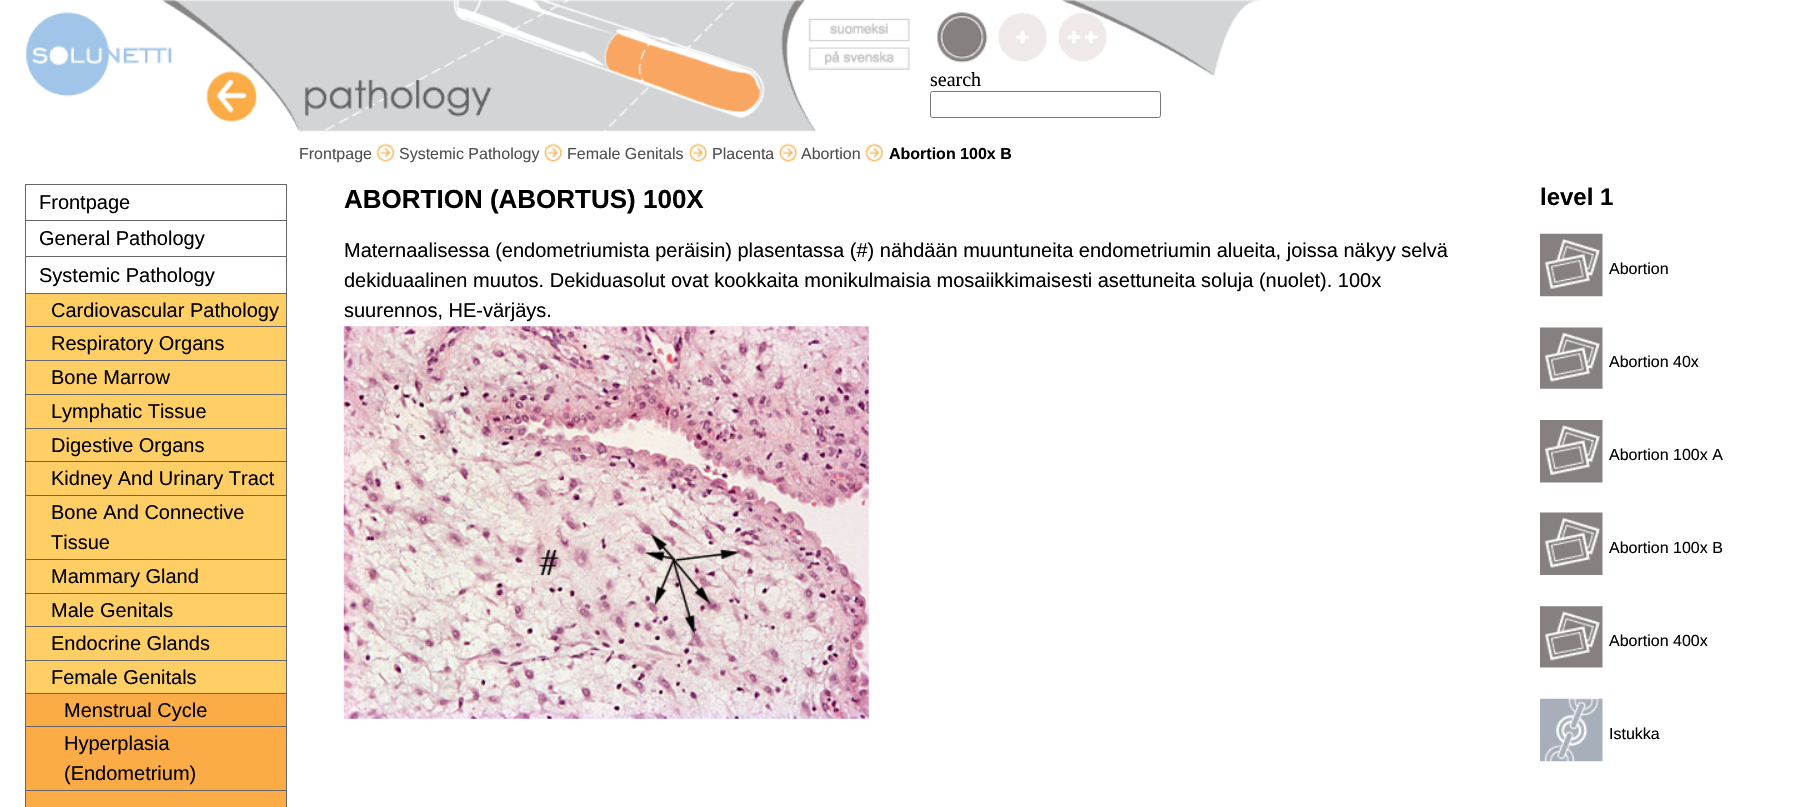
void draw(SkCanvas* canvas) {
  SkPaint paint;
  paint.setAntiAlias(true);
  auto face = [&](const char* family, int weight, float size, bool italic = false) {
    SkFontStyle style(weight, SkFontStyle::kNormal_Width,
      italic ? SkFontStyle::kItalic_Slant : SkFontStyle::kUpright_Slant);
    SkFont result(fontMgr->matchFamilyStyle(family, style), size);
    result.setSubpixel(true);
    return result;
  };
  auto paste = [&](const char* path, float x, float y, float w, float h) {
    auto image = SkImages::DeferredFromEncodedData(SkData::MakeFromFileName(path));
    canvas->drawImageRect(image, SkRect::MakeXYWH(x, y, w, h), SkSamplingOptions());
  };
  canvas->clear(0xffffffff);
  paste("img/1.png", 162, 0, 1098, 132);
  paste("img/2.png", 26, 12, 146, 85);
  paste("img/3.png", 206, 71, 51, 51);
  paste("img/4.png", 808, 18, 102, 24);
  paste("img/5.png", 808, 47, 102, 23);
  paste("img/6.png", 937, 12, 51, 51);
  paste("img/7.png", 998, 12, 49, 50);
  paste("img/8.png", 1058, 12, 49, 50);
  paint.setStroke(true);
  paint.setStrokeWidth(1);
  paint.setColor(0xff767676);
  canvas->drawRoundRect(SkRect::MakeXYWH(930.5f, 91.5f, 230, 26), 2, 2, paint);
  paste("img/9.png", 376, 143, 19, 19);
  paste("img/10.png", 543, 143, 20, 19);
  paste("img/11.png", 688, 143, 20, 19);
  paste("img/11.png", 778, 143, 20, 19);
  paste("img/12.png", 865, 143, 19, 19);
  paint.setStroke(false);
  {
    const struct { float x, y, w, h; SkColor color; } items[] = {
      {286, 184, 1, 623, 0xff696566},
      {25, 184, 1, 623, 0xff696566},
      {26, 184, 260, 1, 0xff696566},
      {26, 220, 260, 1, 0xff696566},
      {26, 256, 260, 1, 0xff696566},
      {26, 294, 260, 399, 0xffffcf65},
      {26, 293, 260, 1, 0xff696566},
      {26, 326, 260, 1, 0xff696566},
      {26, 360, 260, 1, 0xff696566},
      {26, 394, 260, 1, 0xff696566},
      {26, 428, 260, 1, 0xff696566},
      {26, 461, 260, 1, 0xff696566},
      {26, 495, 260, 1, 0xff696566},
      {26, 559, 260, 1, 0xff696566},
      {26, 593, 260, 1, 0xff696566},
      {26, 626, 260, 1, 0xff696566},
      {26, 660, 260, 1, 0xff696566},
      {26, 694, 260, 32, 0xfffbac46},
      {26, 693, 260, 1, 0xff696566},
      {26, 727, 260, 63, 0xfffbac46},
      {26, 726, 260, 1, 0xff696566},
      {26, 791, 260, 16, 0xfffbac46},
      {26, 790, 260, 1, 0xff696566},
    };
    for (auto [x, y, w, h, color] : items) {
      paint.setColor(color);
      canvas->drawRect(SkRect::MakeXYWH(x, y, w, h), paint);
    }
  }
  paste("img/13.png", 343, 326, 526, 393);
  paste("img/14.png", 1540, 233, 63, 64);
  paste("img/15.png", 1540, 327, 63, 62);
  paste("img/16.png", 1540, 420, 63, 63);
  paste("img/17.png", 1540, 512, 63, 63);
  paste("img/18.png", 1540, 606, 63, 62);
  paste("img/19.png", 1540, 698, 63, 64);
  auto f0 = face("Liberation Serif", 400, 20);
  paint.setColor(0xff000000);
  canvas->drawString("search", 930, 86, f0, paint);
  auto f1 = face("Liberation Sans", 400, 16);
  paint.setColor(0xff505050);
  {
    const struct { const char* s; float x, y; } items[] = {
      {"Frontpage", 299, 159},
      {"Systemic Pathology", 399, 159},
      {"Female Genitals", 567, 159},
      {"Placenta", 712, 159},
      {"Abortion", 801, 159},
    };
    for (auto [s, x, y] : items) {
      canvas->drawString(s, x, y, f1, paint);
    }
  }
  auto f2 = face("Liberation Sans", 700, 16);
  paint.setColor(0xff000000);
  canvas->drawString("Abortion 100x B", 889, 159, f2, paint);
  auto f3 = face("Liberation Sans", 400, 20);
  {
    const struct { const char* s; float x, y; } items[] = {
      {"Frontpage", 39, 209},
      {"General Pathology", 39, 245},
      {"Systemic Pathology", 39, 282},
      {"Cardiovascular Pathology", 51, 317},
      {"Respiratory Organs", 51, 350},
      {"Bone Marrow", 51, 384},
      {"Lymphatic Tissue", 51, 418},
      {"Digestive Organs", 51, 452},
      {"Kidney And Urinary Tract", 51, 485},
      {"Bone And Connective", 51, 519},
      {"Tissue", 51, 549},
      {"Mammary Gland", 51, 583},
      {"Male Genitals", 51, 617},
      {"Endocrine Glands", 51, 650},
      {"Female Genitals", 51, 684},
      {"Menstrual Cycle", 64, 717},
      {"Hyperplasia", 64, 750},
      {"(Endometrium)", 64, 780},
    };
    for (auto [s, x, y] : items) {
      canvas->drawString(s, x, y, f3, paint);
    }
  }
  auto f4 = face("Liberation Sans", 700, 26);
  canvas->drawString("ABORTION (ABORTUS) 100X", 344, 208, f4, paint);
  {
    const struct { const char* s; float x, y; } items[] = {
      {"Maternaalisessa (endometriumista peräisin) plasentassa (#) nähdään muuntuneita endometriumin alueita, joissa näkyy selvä", 344, 257},
      {"dekiduaalinen muutos. Dekiduasolut ovat kookkaita monikulmaisia mosaiikkimaisesti asettuneita soluja (nuolet). 100x", 344, 287},
      {"suurennos, HE-värjäys.", 344, 317},
    };
    for (auto [s, x, y] : items) {
      canvas->drawString(s, x, y, f3, paint);
    }
  }
  auto f5 = face("Liberation Sans", 700, 24);
  canvas->drawString("level 1", 1540, 205, f5, paint);
  {
    const struct { const char* s; float x, y; } items[] = {
      {"Abortion", 1609, 274},
      {"Abortion 40x", 1609, 367},
      {"Abortion 100x A", 1609, 460},
      {"Abortion 100x B", 1609, 553},
      {"Abortion 400x", 1609, 646},
      {"Istukka", 1609, 739},
    };
    for (auto [s, x, y] : items) {
      canvas->drawString(s, x, y, f1, paint);
    }
  }
}
